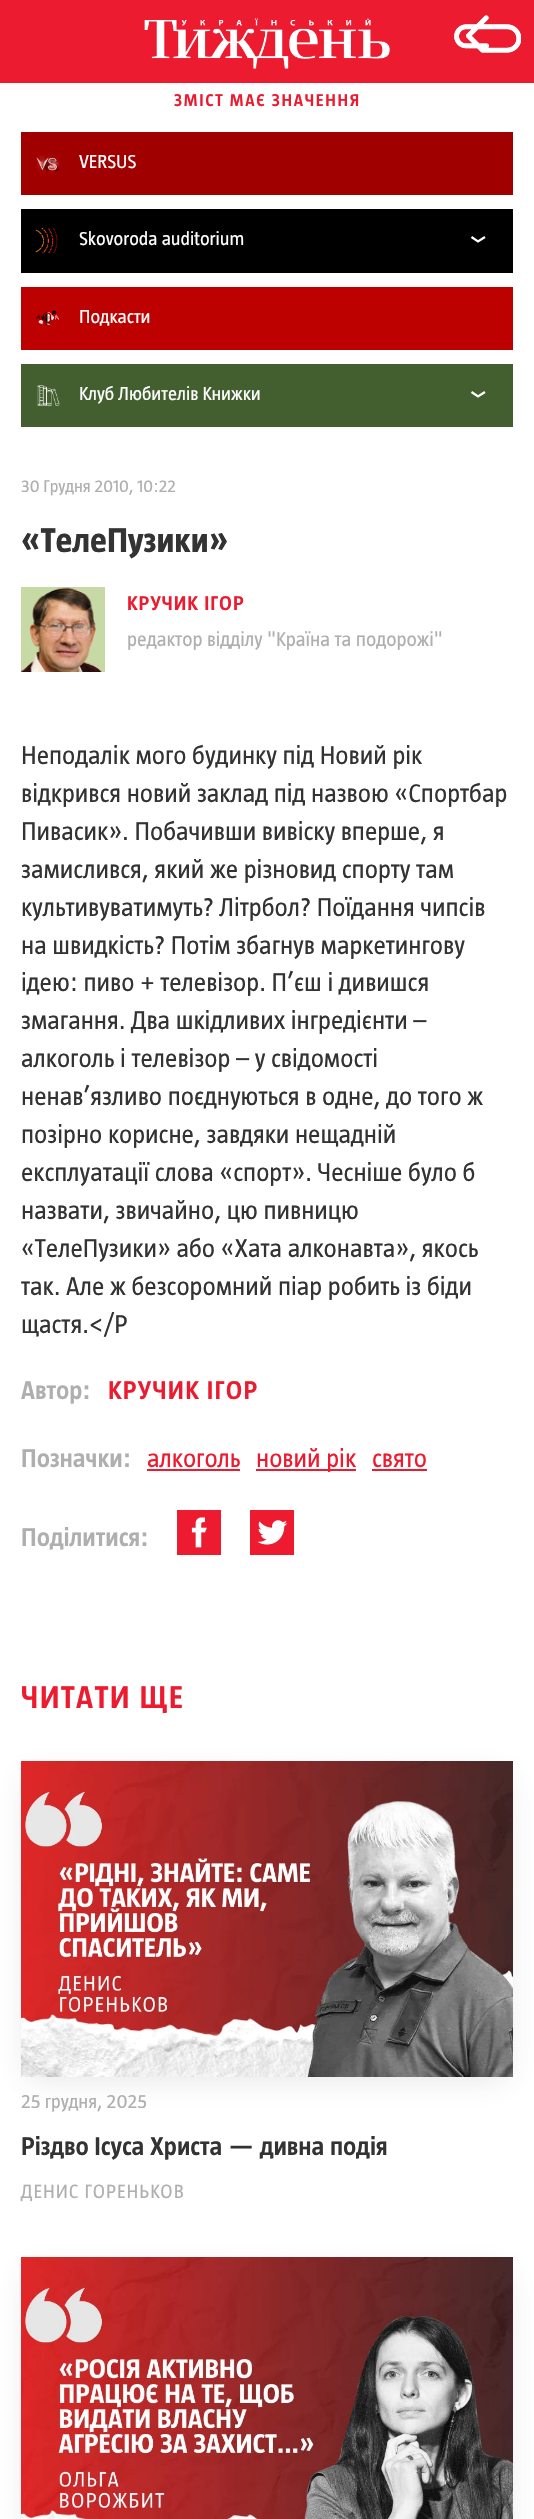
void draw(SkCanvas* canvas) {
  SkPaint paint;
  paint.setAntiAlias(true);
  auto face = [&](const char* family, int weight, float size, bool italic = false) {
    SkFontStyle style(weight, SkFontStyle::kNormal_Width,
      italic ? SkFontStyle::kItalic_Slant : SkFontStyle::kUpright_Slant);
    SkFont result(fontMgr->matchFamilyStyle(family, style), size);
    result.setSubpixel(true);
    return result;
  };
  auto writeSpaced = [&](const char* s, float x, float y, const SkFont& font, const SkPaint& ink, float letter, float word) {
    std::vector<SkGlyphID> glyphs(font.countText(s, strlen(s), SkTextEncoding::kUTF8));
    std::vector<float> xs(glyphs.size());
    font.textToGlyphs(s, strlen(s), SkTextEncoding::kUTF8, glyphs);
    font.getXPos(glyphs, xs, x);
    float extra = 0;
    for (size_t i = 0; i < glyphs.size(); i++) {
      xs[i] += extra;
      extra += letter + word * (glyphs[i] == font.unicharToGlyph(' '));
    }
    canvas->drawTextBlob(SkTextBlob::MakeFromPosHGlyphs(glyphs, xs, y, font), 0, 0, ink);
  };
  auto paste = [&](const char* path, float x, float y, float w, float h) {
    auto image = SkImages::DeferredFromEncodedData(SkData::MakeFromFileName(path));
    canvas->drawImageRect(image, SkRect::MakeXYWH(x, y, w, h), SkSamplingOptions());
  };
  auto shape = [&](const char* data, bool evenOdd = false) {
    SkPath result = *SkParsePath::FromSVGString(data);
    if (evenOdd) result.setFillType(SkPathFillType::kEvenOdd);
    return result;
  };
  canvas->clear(0xffffffff);
  paint.setColor(0xffed1b2f);
  canvas->drawRect(SkRect::MakeXYWH(0, 0, 534, 83), paint);
  paste("img/1.png", 454, 15, 67, 38);
  paste("img/2.png", 144, 18, 246, 51);
  paint.setColor(0xffa10000);
  canvas->drawRect(SkRect::MakeXYWH(21, 132, 492, 63), paint);
  paste("img/3.png", 36, 155, 24, 19);
  paint.setColor(0xff000000);
  canvas->drawRect(SkRect::MakeXYWH(21, 209, 492, 64), paint);
  paste("img/4.png", 35, 228, 23, 25);
  paint.setStroke(true);
  paint.setStrokeWidth(2.2f);
  paint.setColor(0xffffffff);
  canvas->drawPath(shape("M471.5 237L478 241.5L485 237"), paint);
  paint.setStroke(false);
  paint.setColor(0xffbd0000);
  canvas->drawRect(SkRect::MakeXYWH(21, 287, 492, 63), paint);
  paste("img/5.png", 36, 310, 23, 15);
  paint.setColor(0xff435f2f);
  canvas->drawRect(SkRect::MakeXYWH(21, 364, 492, 63), paint);
  paste("img/6.png", 37, 385, 23, 22);
  paint.setStroke(true);
  paint.setColor(0xffffffff);
  canvas->drawPath(shape("M471.5 392L478 396.5L485 392"), paint);
  paste("img/7.png", 21, 587, 84, 85);
  paint.setStroke(false);
  {
    const struct { float x, y, w, h; SkColor color; } items[] = {
      {147, 1469, 93, 2, 0xffed1b2f},
      {256, 1469, 100, 2, 0xffed1b2f},
      {372, 1469, 55, 2, 0xffed1b2f},
    };
    for (auto [x, y, w, h, color] : items) {
      paint.setColor(color);
      canvas->drawRect(SkRect::MakeXYWH(x, y, w, h), paint);
    }
  }
  paste("img/8.png", 177, 1510, 44, 45);
  paste("img/9.png", 250, 1510, 44, 45);
  paint.setColor(0x263c3d4a);
  paint.setMaskFilter(SkMaskFilter::MakeBlur(kNormal_SkBlurStyle, 15));
  canvas->drawRect(SkRect::MakeXYWH(29, 1777, 476, 300), paint);
  paint.setMaskFilter(nullptr);
  paste("img/10.png", 21, 1761, 492, 316);
  paint.setMaskFilter(SkMaskFilter::MakeBlur(kNormal_SkBlurStyle, 15));
  canvas->drawRect(SkRect::MakeXYWH(29, 2273, 476, 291), paint);
  paint.setMaskFilter(nullptr);
  paste("img/11.png", 21, 2257, 492, 262);
  auto f0 = face("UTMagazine", 600, 16.9f);
  paint.setColor(0xffed1b2f);
  writeSpaced("ЗМІСТ МАЄ ЗНАЧЕННЯ", 174, 106, f0, paint, 1.7f, 0);
  auto f1 = face("UTMagazine", 400, 18.5f);
  paint.setColor(0xffffffff);
  {
    const struct { const char* s; float x, y; } items[] = {
      {"VERSUS", 79, 168},
      {"Skovoroda auditorium", 79, 245},
      {"Подкасти", 79, 323},
      {"Клуб Любителів Книжки", 79, 400},
    };
    for (auto [s, x, y] : items) {
      canvas->drawString(s, x, y, f1, paint);
    }
  }
  auto f2 = face("UTMagazine", 400, 16.9f);
  paint.setColor(0xffafafaf);
  canvas->drawString("30 Грудня 2010, 10:22", 21, 492, f2, paint);
  auto f3 = face("UTMagazine", 700, 33.75f);
  paint.setColor(0xff333333);
  canvas->drawString("«ТелеПузики»", 21, 552, f3, paint);
  auto f4 = face("UTMagazine", 600, 19.7f);
  paint.setColor(0xffed1b2f);
  writeSpaced("КРУЧИК ІГОР", 127, 610, f4, paint, 1, 0);
  auto f5 = face("UTMagazine", 400, 19.7f);
  paint.setColor(0xffafafaf);
  canvas->drawString("редактор відділу \"Країна та подорожі\"", 127, 646, f5, paint);
  auto f6 = face("UTMagazine", 400, 25.25f);
  paint.setColor(0xff333333);
  {
    const struct { const char* s; float x, y; } items[] = {
      {"Неподалік мого будинку під Новий рік", 21, 764},
      {"відкрився новий заклад під назвою «Спортбар", 21, 802},
      {"Пивасик». Побачивши вивіску вперше, я", 21, 840},
      {"замислився, який же різновид спорту там", 21, 878},
      {"культивуватимуть? Літрбол? Поїдання чипсів", 21, 916},
      {"на швидкість? Потім збагнув маркетингову", 21, 954},
      {"ідею: пиво + телевізор. П’єш і дивишся", 21, 991},
      {"змагання. Два шкідливих інгредієнти –", 21, 1029},
      {"алкоголь і телевізор – у свідомості", 21, 1067},
      {"ненав’язливо поєднуються в одне, до того ж", 21, 1105},
      {"позірно корисне, завдяки нещадній", 21, 1143},
      {"експлуатації слова «спорт». Чесніше було б", 21, 1181},
      {"назвати, звичайно, цю пивницю", 21, 1219},
      {"«ТелеПузики» або «Хата алконавта», якось", 21, 1257},
      {"так. Але ж безсоромний піар робить із біди", 21, 1295},
      {"щастя.</P", 21, 1333},
    };
    for (auto [s, x, y] : items) {
      canvas->drawString(s, x, y, f6, paint);
    }
  }
  auto f7 = face("UTMagazine", 600, 25.25f);
  paint.setColor(0xffafafaf);
  canvas->drawString("Автор:", 21, 1399, f7, paint);
  paint.setColor(0xffed1b2f);
  writeSpaced("КРУЧИК ІГОР", 108, 1399, f7, paint, 1.25f, 0);
  paint.setColor(0xffafafaf);
  canvas->drawString("Позначки:", 21, 1467, f7, paint);
  paint.setColor(0xffed1b2f);
  {
    const struct { const char* s; float x, y; } items[] = {
      {"алкоголь", 147, 1467},
      {"новий рік", 256, 1467},
      {"свято", 372, 1467},
    };
    for (auto [s, x, y] : items) {
      canvas->drawString(s, x, y, f6, paint);
    }
  }
  paint.setColor(0xffafafaf);
  canvas->drawString("Поділитися:", 21, 1546, f7, paint);
  auto f8 = face("UTMagazine", 600, 31);
  paint.setColor(0xffed1b2f);
  writeSpaced("ЧИТАТИ ЩЕ", 21, 1708, f8, paint, 1.5f, 0);
  auto f9 = face("UTMagazine", 400, 19);
  paint.setColor(0xffafafaf);
  canvas->drawString("25 грудня, 2025", 21, 2108, f9, paint);
  paint.setColor(0xff333333);
  canvas->drawString("Різдво Ісуса Христа — дивна подія", 21, 2155, f7, paint);
  paint.setColor(0xffafafaf);
  writeSpaced("ДЕНИС ГОРЕНЬКОВ", 21, 2198, f9, paint, 1, 0);
}
